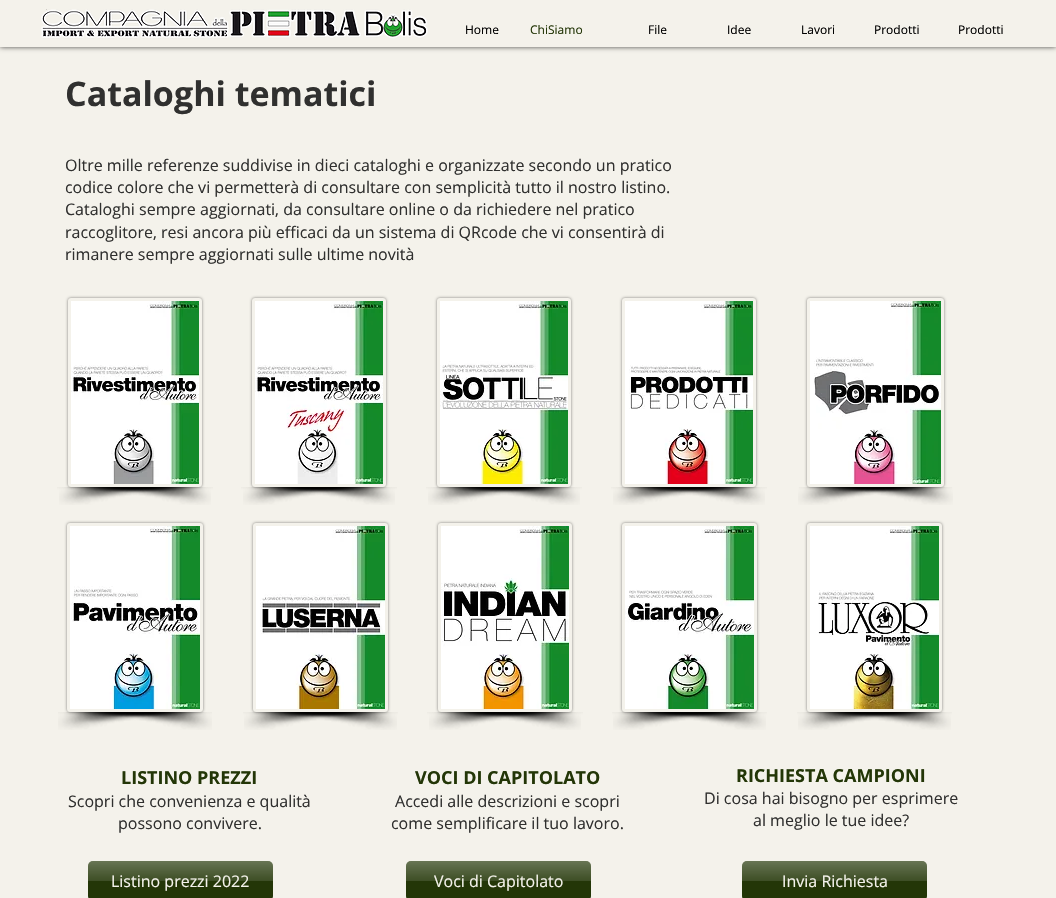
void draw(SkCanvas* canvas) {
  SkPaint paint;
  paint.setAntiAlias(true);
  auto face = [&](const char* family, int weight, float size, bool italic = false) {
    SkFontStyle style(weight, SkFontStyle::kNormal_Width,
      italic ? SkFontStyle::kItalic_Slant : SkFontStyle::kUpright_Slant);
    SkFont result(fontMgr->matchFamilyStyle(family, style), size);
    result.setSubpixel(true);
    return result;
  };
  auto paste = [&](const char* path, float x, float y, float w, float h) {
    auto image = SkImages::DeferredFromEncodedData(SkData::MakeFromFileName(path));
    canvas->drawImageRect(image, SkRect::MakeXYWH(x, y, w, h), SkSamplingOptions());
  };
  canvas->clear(0xfff4f2eb);
  paint.setColor(0xb3000000);
  paint.setMaskFilter(SkMaskFilter::MakeBlur(kNormal_SkBlurStyle, 2.5f));
  canvas->drawRect(SkRect::MakeXYWH(0, 0, 1056, 47), paint);
  paint.setMaskFilter(nullptr);
  paint.setColor(0xfff4f2eb);
  canvas->drawRect(SkRect::MakeXYWH(0, 0, 1056, 47), paint);
  paste("img/1.png", 41, 9, 387, 30);
  paint.setColor(0xffd0ccc7);
  canvas->drawRect(SkRect::MakeXYWH(46, 9, 1, 1), paint);
  paint.setColor(0x80000000);
  paint.setMaskFilter(SkMaskFilter::MakeBlur(kNormal_SkBlurStyle, 1.5f));
  canvas->drawRoundRect(SkRect::MakeXYWH(68, 298, 134, 189), 3, 3, paint);
  paint.setMaskFilter(nullptr);
  paint.setStroke(true);
  paint.setStrokeWidth(3);
  paint.setColor(0xfff4f2eb);
  canvas->drawRoundRect(SkRect::MakeXYWH(69.5f, 299.5f, 131, 186), 1.5f, 1.5f, paint);
  paste("img/2.png", 71, 301, 128, 183);
  paste("img/4.png", 59, 487, 154, 18);
  paste("img/3.png", 57, 487, 154, 18);
  paint.setStroke(false);
  paint.setColor(0x80000000);
  paint.setMaskFilter(SkMaskFilter::MakeBlur(kNormal_SkBlurStyle, 1.5f));
  canvas->drawRoundRect(SkRect::MakeXYWH(252, 298, 134, 189), 3, 3, paint);
  paint.setMaskFilter(nullptr);
  paint.setStroke(true);
  paint.setColor(0xfff4f2eb);
  canvas->drawRoundRect(SkRect::MakeXYWH(253.5f, 299.5f, 131, 186), 1.5f, 1.5f, paint);
  paste("img/5.png", 255, 301, 128, 183);
  paste("img/4.png", 243, 487, 154, 18);
  paste("img/3.png", 241, 487, 154, 18);
  paint.setStroke(false);
  paint.setColor(0x80000000);
  paint.setMaskFilter(SkMaskFilter::MakeBlur(kNormal_SkBlurStyle, 1.5f));
  canvas->drawRoundRect(SkRect::MakeXYWH(437, 298, 134, 189), 3, 3, paint);
  paint.setMaskFilter(nullptr);
  paint.setStroke(true);
  paint.setColor(0xfff4f2eb);
  canvas->drawRoundRect(SkRect::MakeXYWH(438.5f, 299.5f, 131, 186), 1.5f, 1.5f, paint);
  paste("img/6.png", 440, 301, 128, 183);
  paste("img/4.png", 428, 487, 154, 18);
  paste("img/3.png", 426, 487, 154, 18);
  paint.setStroke(false);
  paint.setColor(0x80000000);
  paint.setMaskFilter(SkMaskFilter::MakeBlur(kNormal_SkBlurStyle, 1.5f));
  canvas->drawRoundRect(SkRect::MakeXYWH(622, 298, 134, 189), 3, 3, paint);
  paint.setMaskFilter(nullptr);
  paint.setStroke(true);
  paint.setColor(0xfff4f2eb);
  canvas->drawRoundRect(SkRect::MakeXYWH(623.5f, 299.5f, 131, 186), 1.5f, 1.5f, paint);
  paste("img/7.png", 625, 301, 128, 183);
  paste("img/4.png", 613, 487, 154, 18);
  paste("img/3.png", 611, 487, 154, 18);
  paint.setStroke(false);
  paint.setColor(0x80000000);
  paint.setMaskFilter(SkMaskFilter::MakeBlur(kNormal_SkBlurStyle, 1.5f));
  canvas->drawRoundRect(SkRect::MakeXYWH(807, 298, 137, 189), 3, 3, paint);
  paint.setMaskFilter(nullptr);
  paint.setStroke(true);
  paint.setColor(0xfff4f2eb);
  canvas->drawRoundRect(SkRect::MakeXYWH(808.5f, 299.5f, 134, 186), 1.5f, 1.5f, paint);
  paste("img/8.png", 810, 301, 131, 183);
  paste("img/9.png", 798, 487, 154, 18);
  paste("img/10.png", 799, 487, 154, 18);
  paint.setStroke(false);
  paint.setColor(0x80000000);
  paint.setMaskFilter(SkMaskFilter::MakeBlur(kNormal_SkBlurStyle, 1.5f));
  canvas->drawRoundRect(SkRect::MakeXYWH(67, 523, 136, 189), 3, 3, paint);
  paint.setMaskFilter(nullptr);
  paint.setStroke(true);
  paint.setColor(0xfff4f2eb);
  canvas->drawRoundRect(SkRect::MakeXYWH(68.5f, 524.5f, 133, 186), 1.5f, 1.5f, paint);
  paste("img/11.png", 70, 526, 130, 183);
  paste("img/12.png", 58, 712, 154, 18);
  paste("img/13.png", 58, 712, 154, 18);
  paint.setStroke(false);
  paint.setColor(0x80000000);
  paint.setMaskFilter(SkMaskFilter::MakeBlur(kNormal_SkBlurStyle, 1.5f));
  canvas->drawRoundRect(SkRect::MakeXYWH(253, 523, 135, 189), 3, 3, paint);
  paint.setMaskFilter(nullptr);
  paint.setStroke(true);
  paint.setColor(0xfff4f2eb);
  canvas->drawRoundRect(SkRect::MakeXYWH(254.5f, 524.5f, 132, 186), 1.5f, 1.5f, paint);
  paste("img/14.png", 256, 526, 129, 183);
  paste("img/16.png", 244, 712, 154, 18);
  paste("img/15.png", 243, 712, 154, 18);
  paint.setStroke(false);
  paint.setColor(0x80000000);
  paint.setMaskFilter(SkMaskFilter::MakeBlur(kNormal_SkBlurStyle, 1.5f));
  canvas->drawRoundRect(SkRect::MakeXYWH(438, 523, 134, 189), 3, 3, paint);
  paint.setMaskFilter(nullptr);
  paint.setStroke(true);
  paint.setColor(0xfff4f2eb);
  canvas->drawRoundRect(SkRect::MakeXYWH(439.5f, 524.5f, 131, 186), 1.5f, 1.5f, paint);
  paste("img/17.png", 441, 526, 128, 183);
  paste("img/4.png", 429, 712, 154, 18);
  paste("img/3.png", 427, 712, 154, 18);
  paint.setStroke(false);
  paint.setColor(0x80000000);
  paint.setMaskFilter(SkMaskFilter::MakeBlur(kNormal_SkBlurStyle, 1.5f));
  canvas->drawRoundRect(SkRect::MakeXYWH(622, 523, 135, 189), 3, 3, paint);
  paint.setMaskFilter(nullptr);
  paint.setStroke(true);
  paint.setColor(0xfff4f2eb);
  canvas->drawRoundRect(SkRect::MakeXYWH(623.5f, 524.5f, 132, 186), 1.5f, 1.5f, paint);
  paste("img/18.png", 625, 526, 129, 183);
  paste("img/16.png", 613, 712, 154, 18);
  paste("img/15.png", 612, 712, 154, 18);
  paint.setStroke(false);
  paint.setColor(0x80000000);
  paint.setMaskFilter(SkMaskFilter::MakeBlur(kNormal_SkBlurStyle, 1.5f));
  canvas->drawRoundRect(SkRect::MakeXYWH(807, 523, 135, 189), 3, 3, paint);
  paint.setMaskFilter(nullptr);
  paint.setStroke(true);
  paint.setColor(0xfff4f2eb);
  canvas->drawRoundRect(SkRect::MakeXYWH(808.5f, 524.5f, 132, 186), 1.5f, 1.5f, paint);
  paste("img/19.png", 810, 526, 129, 183);
  paste("img/16.png", 798, 712, 154, 18);
  paste("img/15.png", 797, 712, 154, 18);
  paint.setStroke(false);
  paint.setColor(0xff233607);
  canvas->drawRoundRect(SkRect::MakeXYWH(88, 861, 185, 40), 5, 5, paint);
  paste("img/20.png", 88, 861, 185, 20);
  canvas->drawRoundRect(SkRect::MakeXYWH(406, 861, 185, 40), 5, 5, paint);
  paste("img/20.png", 406, 861, 185, 20);
  canvas->drawRoundRect(SkRect::MakeXYWH(742, 861, 185, 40), 5, 5, paint);
  paste("img/20.png", 742, 861, 185, 20);
  auto f0 = face("Open Sans", 400, 12);
  paint.setColor(0xff000000);
  canvas->drawString("Home", 465, 34, f0, paint);
  paint.setColor(0xff233607);
  canvas->drawString("ChiSiamo", 530, 34, f0, paint);
  paint.setColor(0xff000000);
  {
    const struct { const char* s; float x, y; } items[] = {
      {"File", 648, 34},
      {"Idee", 727, 34},
      {"Lavori", 801, 34},
      {"Prodotti", 874, 34},
      {"Prodotti", 958, 34},
    };
    for (auto [s, x, y] : items) {
      canvas->drawString(s, x, y, f0, paint);
    }
  }
  auto f1 = face("Open Sans", 700, 34);
  paint.setColor(0xff30302f);
  canvas->drawString("Cataloghi tematici", 65, 106, f1, paint);
  auto f2 = face("Open Sans", 400, 16);
  {
    const struct { const char* s; float x, y; } items[] = {
      {"Oltre mille referenze suddivise in dieci cataloghi e organizzate secondo un pratico", 65, 171},
      {"codice colore che vi permetterà di consultare con semplicità tutto il nostro listino.", 65, 193},
      {"Cataloghi sempre aggiornati, da consultare online o da richiedere nel pratico", 65, 215},
      {"raccoglitore, resi ancora più efficaci da un sistema di QRcode che vi consentirà di", 65, 238},
      {"rimanere sempre aggiornati sulle ultime novità", 65, 260},
    };
    for (auto [s, x, y] : items) {
      canvas->drawString(s, x, y, f2, paint);
    }
  }
  auto f3 = face("Open Sans", 700, 18);
  paint.setColor(0xff233607);
  canvas->drawString("LISTINO PREZZI", 121, 784, f3, paint);
  paint.setColor(0xff30302f);
  canvas->drawString("Scopri che convenienza e qualità", 68, 807, f2, paint);
  canvas->drawString("possono convivere.", 118, 829, f2, paint);
  paint.setColor(0xff233607);
  canvas->drawString("VOCI DI CAPITOLATO", 415, 784, f3, paint);
  paint.setColor(0xff30302f);
  canvas->drawString("Accedi alle descrizioni e scopri", 395, 807, f2, paint);
  canvas->drawString("come semplificare il tuo lavoro.", 391, 829, f2, paint);
  paint.setColor(0xff233607);
  canvas->drawString("RICHIESTA CAMPIONI", 736, 782, f3, paint);
  paint.setColor(0xff30302f);
  canvas->drawString("Di cosa hai bisogno per esprimere", 704, 804, f2, paint);
  canvas->drawString("al meglio le tue idee?", 753, 826, f2, paint);
  paint.setColor(0xfff4f2eb);
  {
    const struct { const char* s; float x, y; } items[] = {
      {"Listino prezzi 2022", 111, 887},
      {"Voci di Capitolato", 434, 887},
      {"Invia Richiesta", 782, 887},
    };
    for (auto [s, x, y] : items) {
      canvas->drawString(s, x, y, f2, paint);
    }
  }
}
